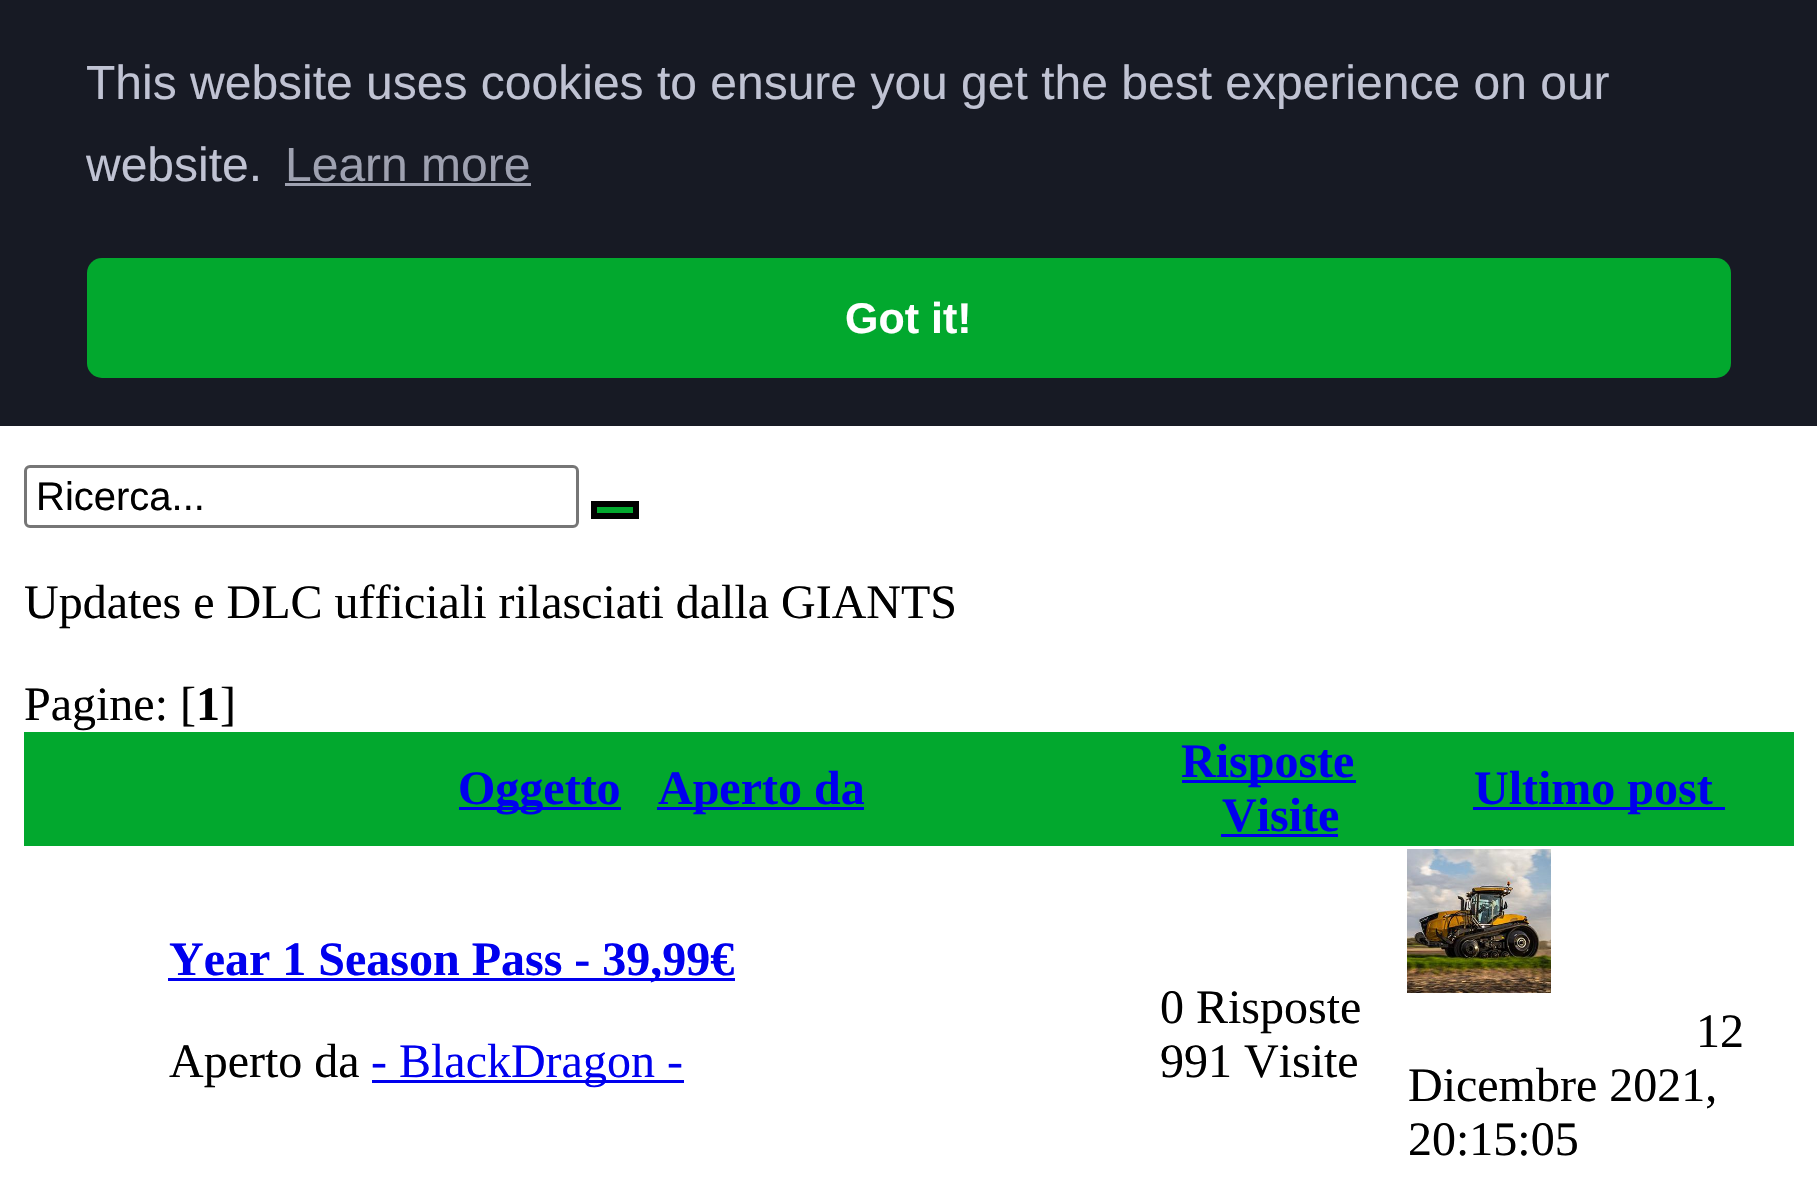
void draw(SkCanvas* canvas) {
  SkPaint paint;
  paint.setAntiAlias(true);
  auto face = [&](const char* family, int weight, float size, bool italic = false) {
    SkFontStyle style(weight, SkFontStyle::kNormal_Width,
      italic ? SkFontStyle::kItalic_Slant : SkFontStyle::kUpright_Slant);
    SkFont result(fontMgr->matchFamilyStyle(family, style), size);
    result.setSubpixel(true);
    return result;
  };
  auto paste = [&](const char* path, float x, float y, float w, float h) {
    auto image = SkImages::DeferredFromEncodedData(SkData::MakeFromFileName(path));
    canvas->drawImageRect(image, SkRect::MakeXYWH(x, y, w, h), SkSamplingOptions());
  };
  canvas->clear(0xffffffff);
  paint.setColor(0xff171a24);
  canvas->drawRect(SkRect::MakeXYWH(0, 0, 1817, 426), paint);
  paint.setColor(0xff9ea1b0);
  canvas->drawRect(SkRect::MakeXYWH(285, 183, 246, 3), paint);
  paint.setColor(0xff02a82e);
  canvas->drawRoundRect(SkRect::MakeXYWH(87, 258, 1644, 120), 15, 15, paint);
  paint.setStroke(true);
  paint.setStrokeWidth(3);
  paint.setColor(0xff767676);
  canvas->drawRoundRect(SkRect::MakeXYWH(25.5f, 466.5f, 552, 60), 4.5f, 4.5f, paint);
  paint.setStroke(false);
  paint.setColor(0xff02a82e);
  canvas->drawRect(SkRect::MakeXYWH(594, 504, 42, 12), paint);
  paint.setStroke(true);
  paint.setStrokeWidth(6);
  paint.setColor(0xff000000);
  canvas->drawRect(SkRect::MakeXYWH(594, 504, 42, 12), paint);
  paint.setStroke(false);
  {
    const struct { float x, y, w, h; SkColor color; } items[] = {
      {24, 732, 1770, 114, 0xff02a82e},
      {459, 807, 162, 3, 0xff0000ee},
      {657, 807, 207, 3, 0xff0000ee},
      {1182, 780, 174, 3, 0xff0000ee},
      {1221, 834, 117, 3, 0xff0000ee},
      {1473, 807, 252, 3, 0xff0000ee},
      {168, 978, 567, 3, 0xff0000ee},
      {372, 1080, 312, 3, 0xff0000ee},
    };
    for (auto [x, y, w, h, color] : items) {
      paint.setColor(color);
      canvas->drawRect(SkRect::MakeXYWH(x, y, w, h), paint);
    }
  }
  paste("img/1.png", 1407, 849, 144, 144);
  auto f0 = face("Liberation Sans", 400, 48);
  paint.setColor(0xffc0c3d3);
  canvas->drawString("This website uses cookies to ensure you get the best experience on our", 86, 99, f0, paint);
  canvas->drawString("website.", 86, 181, f0, paint);
  paint.setColor(0xff9ea1b0);
  canvas->drawString("Learn more", 285, 181, f0, paint);
  auto f1 = face("Liberation Sans", 700, 43);
  paint.setColor(0xffffffff);
  canvas->drawString("Got it!", 845, 333, f1, paint);
  auto f2 = face("Liberation Sans", 400, 40);
  paint.setColor(0xff000000);
  canvas->drawString("Ricerca...", 36, 510, f2, paint);
  auto f3 = face("Liberation Serif", 400, 48);
  canvas->drawString("Updates e DLC ufficiali rilasciati dalla GIANTS", 24, 618, f3, paint);
  canvas->drawString("Pagine: [", 24, 720, f3, paint);
  auto f4 = face("Liberation Serif", 700, 48);
  canvas->drawString("1", 196, 720, f4, paint);
  canvas->drawString("]", 220, 720, f3, paint);
  paint.setColor(0xff0000ee);
  {
    const struct { const char* s; float x, y; } items[] = {
      {"Oggetto", 458, 804},
      {"Aperto da", 658, 804},
      {"Risposte", 1181, 777},
      {"Visite", 1222, 831},
      {"Ultimo post", 1474, 804},
      {"Year 1 Season Pass - 39,99€", 169, 975},
    };
    for (auto [s, x, y] : items) {
      canvas->drawString(s, x, y, f4, paint);
    }
  }
  paint.setColor(0xff000000);
  canvas->drawString("Aperto da", 169, 1077, f3, paint);
  paint.setColor(0xff0000ee);
  canvas->drawString("- BlackDragon -", 371, 1077, f3, paint);
  paint.setColor(0xff000000);
  {
    const struct { const char* s; float x, y; } items[] = {
      {"0 Risposte", 1160, 1023},
      {"991 Visite", 1160, 1077},
      {"12", 1696, 1047},
      {"Dicembre 2021,", 1408, 1101},
      {"20:15:05", 1408, 1155},
    };
    for (auto [s, x, y] : items) {
      canvas->drawString(s, x, y, f3, paint);
    }
  }
}
